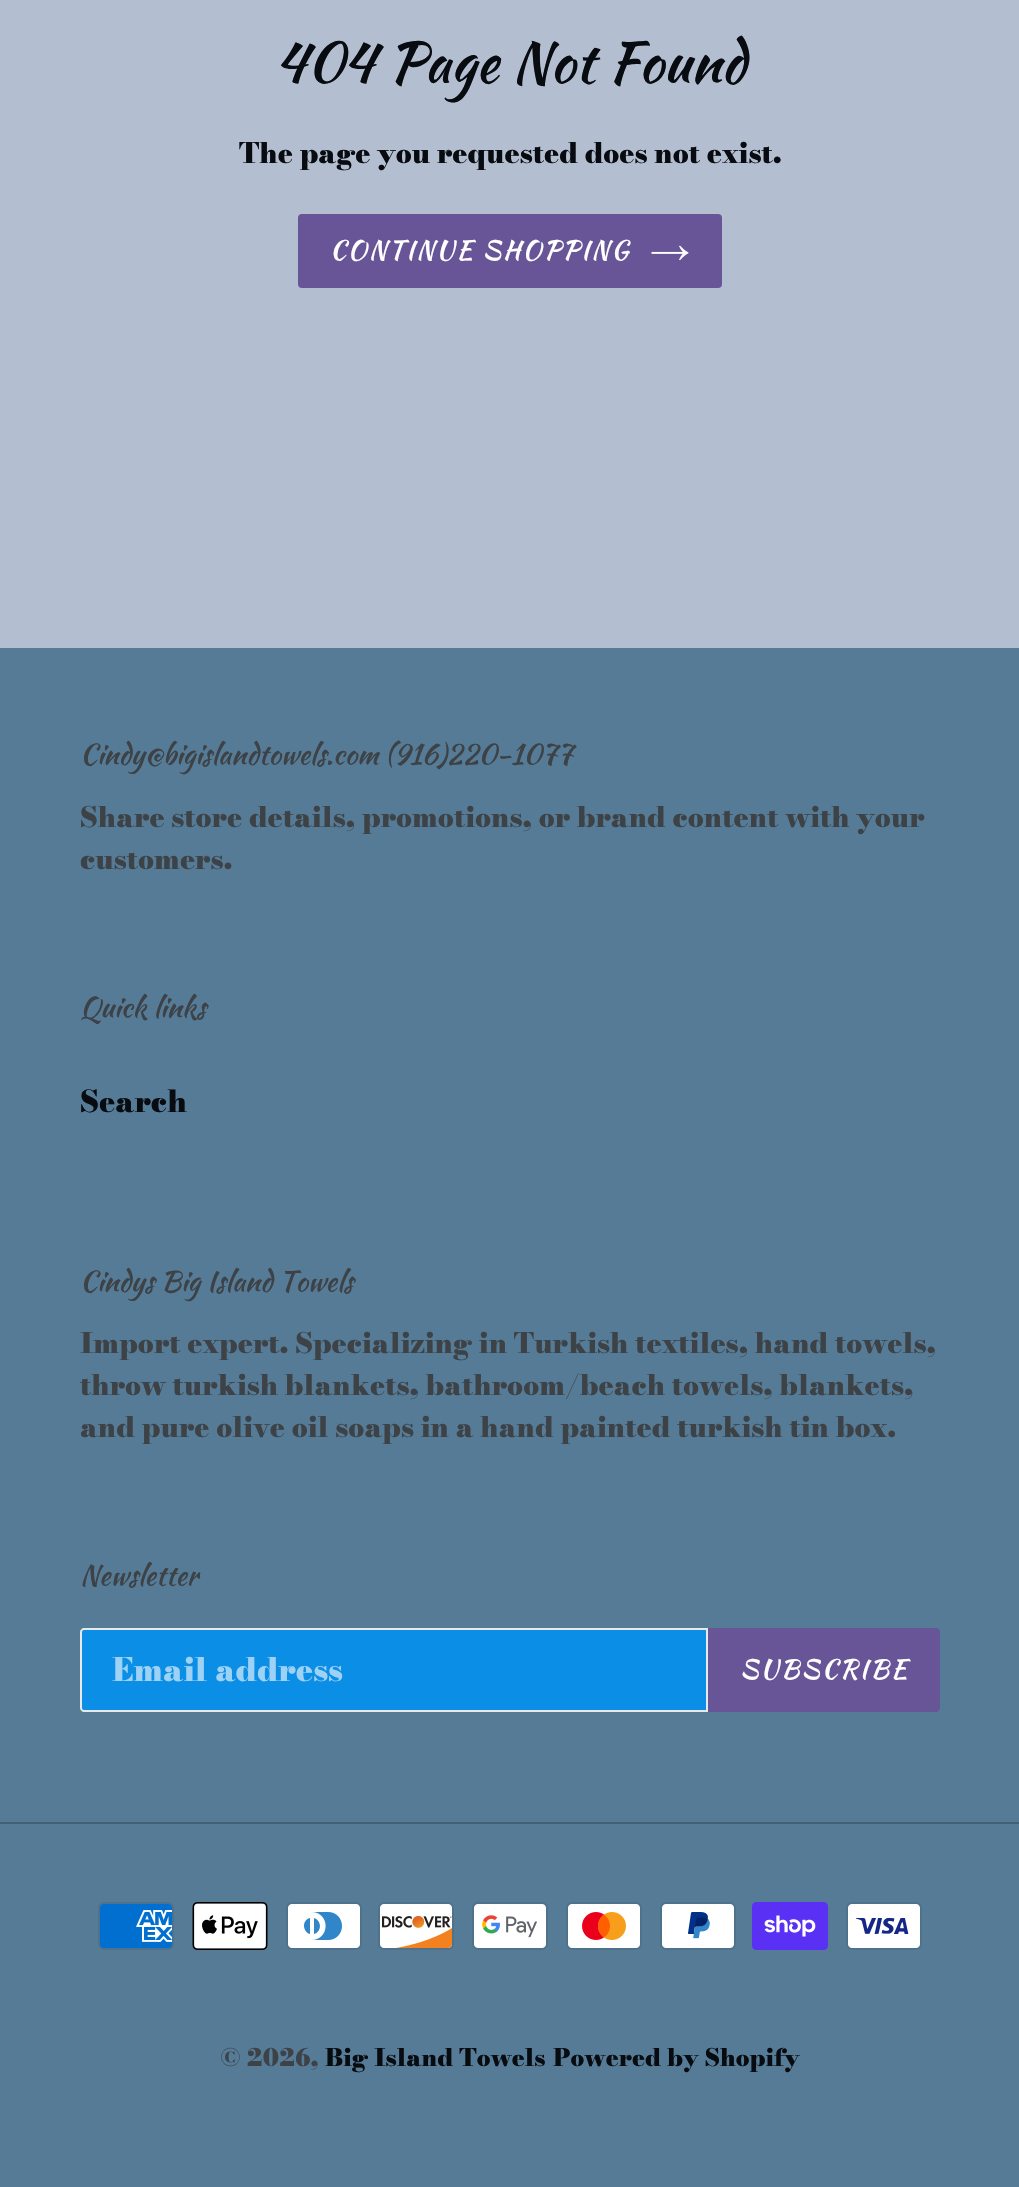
void draw(SkCanvas* canvas) {
  SkPaint paint;
  paint.setAntiAlias(true);
  auto face = [&](const char* family, int weight, float size, bool italic = false) {
    SkFontStyle style(weight, SkFontStyle::kNormal_Width,
      italic ? SkFontStyle::kItalic_Slant : SkFontStyle::kUpright_Slant);
    SkFont result(fontMgr->matchFamilyStyle(family, style), size);
    result.setSubpixel(true);
    return result;
  };
  auto writeSpaced = [&](const char* s, float x, float y, const SkFont& font, const SkPaint& ink, float letter, float word) {
    std::vector<SkGlyphID> glyphs(font.countText(s, strlen(s), SkTextEncoding::kUTF8));
    std::vector<float> xs(glyphs.size());
    font.textToGlyphs(s, strlen(s), SkTextEncoding::kUTF8, glyphs);
    font.getXPos(glyphs, xs, x);
    float extra = 0;
    for (size_t i = 0; i < glyphs.size(); i++) {
      xs[i] += extra;
      extra += letter + word * (glyphs[i] == font.unicharToGlyph(' '));
    }
    canvas->drawTextBlob(SkTextBlob::MakeFromPosHGlyphs(glyphs, xs, y, font), 0, 0, ink);
  };
  auto paste = [&](const char* path, float x, float y, float w, float h) {
    auto image = SkImages::DeferredFromEncodedData(SkData::MakeFromFileName(path));
    canvas->drawImageRect(image, SkRect::MakeXYWH(x, y, w, h), SkSamplingOptions());
  };
  auto shape = [&](const char* data, bool evenOdd = false) {
    SkPath result = *SkParsePath::FromSVGString(data);
    if (evenOdd) result.setFillType(SkPathFillType::kEvenOdd);
    return result;
  };
  canvas->clear(0xffb4bed1);
  paint.setColor(0xff675597);
  canvas->drawRoundRect(SkRect::MakeXYWH(298, 214, 424, 74), 4, 4, paint);
  paste("img/1.png", 651, 245, 38, 15);
  paint.setColor(0xff557b97);
  canvas->drawRect(SkRect::MakeXYWH(0, 648, 1019, 1539), paint);
  paint.setColor(0xff0b8ee6);
  canvas->drawPath(shape("M84 1629H707V1711H84C82.5 1711 81 1709.5 81 1708V1632C81 1630.5 82.5 1629 84 1629Z"), paint);
  paint.setStroke(true);
  paint.setStrokeWidth(2);
  paint.setColor(0xffe8e9eb);
  canvas->drawPath(shape("M84 1629H707V1711H84C82.5 1711 81 1709.5 81 1708V1632C81 1630.5 82.5 1629 84 1629Z"), paint);
  paint.setStroke(false);
  paint.setColor(0xff675597);
  canvas->drawPath(shape("M708 1628H936C938 1628 940 1630 940 1632V1708C940 1710 938 1712 936 1712H708Z"), paint);
  paint.setColor(0xff436076);
  canvas->drawRect(SkRect::MakeXYWH(0, 1822, 1019, 2), paint);
  paste("img/2.png", 98, 1902, 76, 48);
  paste("img/3.png", 192, 1902, 76, 48);
  paste("img/4.png", 286, 1902, 76, 48);
  paste("img/5.png", 378, 1902, 76, 48);
  paste("img/6.png", 472, 1902, 76, 48);
  paste("img/7.png", 566, 1902, 76, 48);
  paste("img/8.png", 660, 1902, 76, 48);
  paste("img/9.png", 752, 1902, 76, 48);
  paste("img/10.png", 846, 1902, 76, 48);
  auto f0 = face("Kaushan Script", 400, 56);
  paint.setColor(0xff080c10);
  canvas->drawString("404 Page Not Found", 275, 82, f0, paint);
  auto f1 = face("Bodoni Moda", 900, 28);
  writeSpaced("The page you requested does not exist.", 239, 163, f1, paint, 0, -0.25f);
  auto f2 = face("Kaushan Script", 400, 26);
  paint.setColor(0xffffffff);
  writeSpaced("CONTINUE SHOPPING", 330, 259, f2, paint, 2.1f, 0);
  auto f3 = face("Kaushan Script", 400, 28);
  paint.setColor(0xff3d4246);
  canvas->drawString("Cindy@bigislandtowels.com (916)220-1077", 80, 764, f3, paint);
  writeSpaced("Share store details, promotions, or brand content with your", 80, 827, f1, paint, 0, -0.25f);
  canvas->drawString("customers.", 80, 869, f1, paint);
  canvas->drawString("Quick links", 80, 1017, f3, paint);
  auto f4 = face("Bodoni Moda", 900, 30);
  paint.setColor(0xff080c10);
  canvas->drawString("Search", 80, 1112, f4, paint);
  paint.setColor(0xff3d4246);
  canvas->drawString("Cindys Big Island Towels", 80, 1291, f3, paint);
  writeSpaced("Import expert. Specializing in Turkish textiles, hand towels,", 80, 1353, f1, paint, 0, -0.25f);
  writeSpaced("throw turkish blankets, bathroom/beach towels, blankets,", 80, 1395, f1, paint, 0, -0.5f);
  writeSpaced("and pure olive oil soaps in a hand painted turkish tin box.", 80, 1437, f1, paint, 0, -0.25f);
  canvas->drawString("Newsletter", 80, 1585, f3, paint);
  auto f5 = face("Bodoni Moda", 900, 32);
  paint.setColor(0xff9dd2f5);
  canvas->drawString("Email address", 112, 1681, f5, paint);
  paint.setColor(0xffffffff);
  writeSpaced("SUBSCRIBE", 740, 1678, f2, paint, 2.1f, 0);
  auto f6 = face("Bodoni Moda", 900, 24);
  paint.setColor(0xff3d4246);
  canvas->drawString("© 2026,", 220, 2066, f6, paint);
  paint.setColor(0xff080c10);
  canvas->drawString("Big Island Towels", 325, 2066, f6, paint);
  canvas->drawString("Powered by Shopify", 553, 2066, f6, paint);
}
